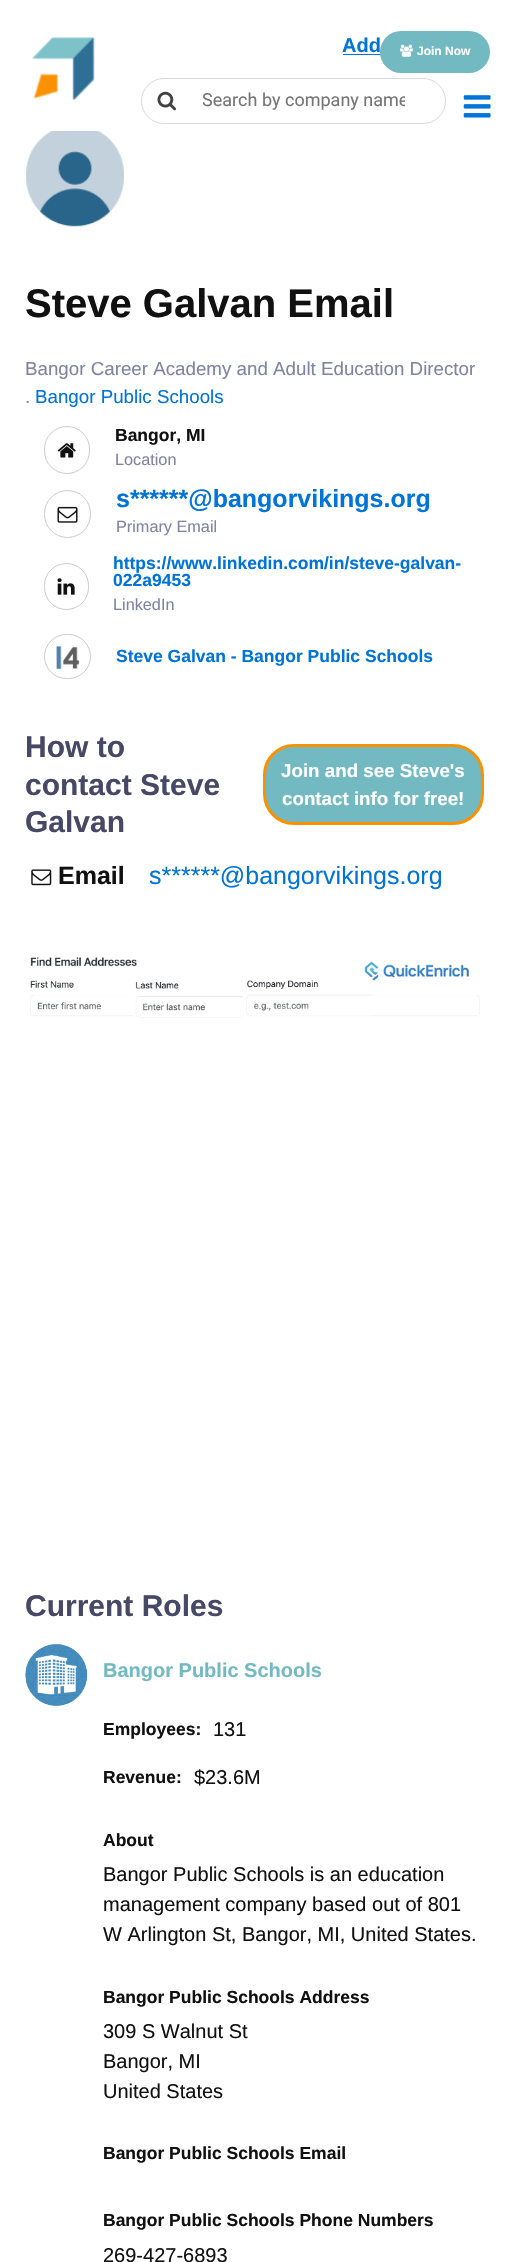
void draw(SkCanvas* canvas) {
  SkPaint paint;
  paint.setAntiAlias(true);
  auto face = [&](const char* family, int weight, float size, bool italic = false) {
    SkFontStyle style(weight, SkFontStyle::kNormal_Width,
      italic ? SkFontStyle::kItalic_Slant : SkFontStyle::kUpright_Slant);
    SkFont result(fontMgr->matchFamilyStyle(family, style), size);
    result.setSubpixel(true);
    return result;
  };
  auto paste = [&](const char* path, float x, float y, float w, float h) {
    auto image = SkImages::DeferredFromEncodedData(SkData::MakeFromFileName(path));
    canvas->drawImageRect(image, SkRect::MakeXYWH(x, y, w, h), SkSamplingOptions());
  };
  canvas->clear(0xffffffff);
  paste("img/1.png", 32, 37, 63, 64);
  paint.setColor(0xff0074d9);
  canvas->drawRect(SkRect::MakeXYWH(343, 54, 38, 1), paint);
  paint.setColor(0xff72b9c2);
  canvas->drawRoundRect(SkRect::MakeXYWH(380, 31, 110, 42), 21, 21, paint);
  paste("img/2.png", 400, 44, 13, 13);
  paint.setStroke(true);
  paint.setStrokeWidth(1);
  paint.setColor(0xffd6dadd);
  canvas->drawRoundRect(SkRect::MakeXYWH(141.5f, 78.5f, 304, 45), 22.5f, 22.5f, paint);
  paste("img/3.png", 157, 91, 19, 20);
  paste("img/4.png", 463, 95, 28, 23);
  paste("img/5.png", 26, 131, 98, 96);
  paint.setColor(0xffcccccc);
  canvas->drawRoundRect(SkRect::MakeXYWH(44.5f, 426.5f, 45, 47), 22.5f, 22.5f, paint);
  paste("img/6.png", 57, 443, 19, 15);
  canvas->drawRoundRect(SkRect::MakeXYWH(44.5f, 490.5f, 46, 47), 23, 23, paint);
  paste("img/7.png", 57, 506, 21, 17);
  canvas->drawRoundRect(SkRect::MakeXYWH(44.5f, 563.5f, 44, 46), 22, 22, paint);
  paste("img/8.png", 57, 578, 18, 17);
  canvas->drawRoundRect(SkRect::MakeXYWH(44.5f, 634.5f, 46, 44), 22, 22, paint);
  paste("img/9.png", 56, 645, 24, 25);
  paint.setStroke(false);
  paint.setColor(0xff72b9c2);
  canvas->drawRoundRect(SkRect::MakeXYWH(264.5f, 745.5f, 218, 78), 29.5f, 29.5f, paint);
  paint.setStroke(true);
  paint.setStrokeWidth(3);
  paint.setColor(0xfffc9100);
  canvas->drawRoundRect(SkRect::MakeXYWH(264.5f, 745.5f, 218, 78), 29.5f, 29.5f, paint);
  paste("img/10.png", 31, 869, 21, 17);
  paste("img/11.png", 30, 957, 450, 61);
  paste("img/12.png", 25, 1643, 63, 64);
  auto f0 = face("Liberation Sans", 700, 20);
  paint.setStroke(false);
  paint.setColor(0xff0074d9);
  canvas->drawString("Add", 342, 52, f0, paint);
  auto f1 = face("Liberation Sans", 700, 12);
  paint.setColor(0xffffffff);
  canvas->drawString("Join Now", 417, 55, f1, paint);
  canvas->save();
  canvas->clipRect(SkRect::MakeXYWH(203, 90, 202, 21));
  auto f2 = face("Roboto", 400, 18);
  paint.setColor(0xff757575);
  canvas->drawString("Search by company name", 202, 106, f2, paint);
  canvas->restore();
  auto f3 = face("Liberation Sans", 700, 40);
  paint.setColor(0xff111111);
  canvas->drawString("Steve Galvan Email", 25, 317, f3, paint);
  auto f4 = face("Liberation Sans", 400, 18.75f);
  paint.setColor(0xff8083a3);
  canvas->drawString("Bangor Career Academy and Adult Education Director", 25, 375, f4, paint);
  canvas->drawString(".", 25, 403, f4, paint);
  paint.setColor(0xff0074d9);
  canvas->drawString("Bangor Public Schools", 35, 403, f4, paint);
  auto f5 = face("Liberation Sans", 700, 17.5f);
  paint.setColor(0xff111111);
  canvas->drawString("Bangor, MI", 115, 441, f5, paint);
  auto f6 = face("Liberation Sans", 400, 16.25f);
  paint.setColor(0xff8083a3);
  canvas->drawString("Location", 115, 465, f6, paint);
  auto f7 = face("Liberation Sans", 700, 25);
  paint.setColor(0xff0074d9);
  canvas->drawString("s******@bangorvikings.org", 116, 507, f7, paint);
  paint.setColor(0xff8083a3);
  canvas->drawString("Primary Email", 116, 532, f6, paint);
  paint.setColor(0xff0074d9);
  canvas->drawString("https://www.linkedin.com/in/steve-galvan-", 113, 569, f5, paint);
  canvas->drawString("022a9453", 113, 586, f5, paint);
  paint.setColor(0xff8083a3);
  canvas->drawString("LinkedIn", 113, 610, f6, paint);
  paint.setColor(0xff0074d9);
  canvas->drawString("Steve Galvan - Bangor Public Schools", 116, 662, f5, paint);
  auto f8 = face("Liberation Sans", 700, 30);
  paint.setColor(0xff474866);
  {
    const struct { const char* s; float x, y; } items[] = {
      {"How to", 25, 757},
      {"contact Steve", 25, 795},
      {"Galvan", 25, 832},
    };
    for (auto [s, x, y] : items) {
      canvas->drawString(s, x, y, f8, paint);
    }
  }
  auto f9 = face("Liberation Sans", 700, 18.75f);
  paint.setColor(0xffffffff);
  canvas->drawString("Join and see Steve's", 281, 777, f9, paint);
  canvas->drawString("contact info for free!", 282, 805, f9, paint);
  paint.setColor(0xff111111);
  canvas->drawString("Email", 58, 884, f7, paint);
  auto f10 = face("Liberation Sans", 400, 25);
  paint.setColor(0xff0074d9);
  canvas->drawString("s******@bangorvikings.org", 149, 884, f10, paint);
  paint.setColor(0xff474866);
  canvas->drawString("Current Roles", 25, 1616, f8, paint);
  paint.setColor(0xff72b9c2);
  canvas->drawString("Bangor Public Schools", 103, 1677, f0, paint);
  paint.setColor(0xff111111);
  canvas->drawString("Employees:", 103, 1735, f5, paint);
  auto f11 = face("Liberation Sans", 400, 20);
  canvas->drawString("131", 213, 1736, f11, paint);
  canvas->drawString("Revenue:", 103, 1783, f5, paint);
  canvas->drawString("$23.6M", 194, 1784, f11, paint);
  canvas->drawString("About", 103, 1846, f5, paint);
  {
    const struct { const char* s; float x, y; } items[] = {
      {"Bangor Public Schools is an education", 103, 1881},
      {"management company based out of 801", 103, 1911},
      {"W Arlington St, Bangor, MI, United States.", 103, 1941},
    };
    for (auto [s, x, y] : items) {
      canvas->drawString(s, x, y, f11, paint);
    }
  }
  canvas->drawString("Bangor Public Schools Address", 103, 2003, f5, paint);
  {
    const struct { const char* s; float x, y; } items[] = {
      {"309 S Walnut St", 103, 2038},
      {"Bangor, MI", 103, 2068},
      {"United States", 103, 2098},
    };
    for (auto [s, x, y] : items) {
      canvas->drawString(s, x, y, f11, paint);
    }
  }
  canvas->drawString("Bangor Public Schools Email", 103, 2159, f5, paint);
  canvas->drawString("Bangor Public Schools Phone Numbers", 103, 2226, f5, paint);
  canvas->drawString("269-427-6893", 103, 2262, f11, paint);
}
